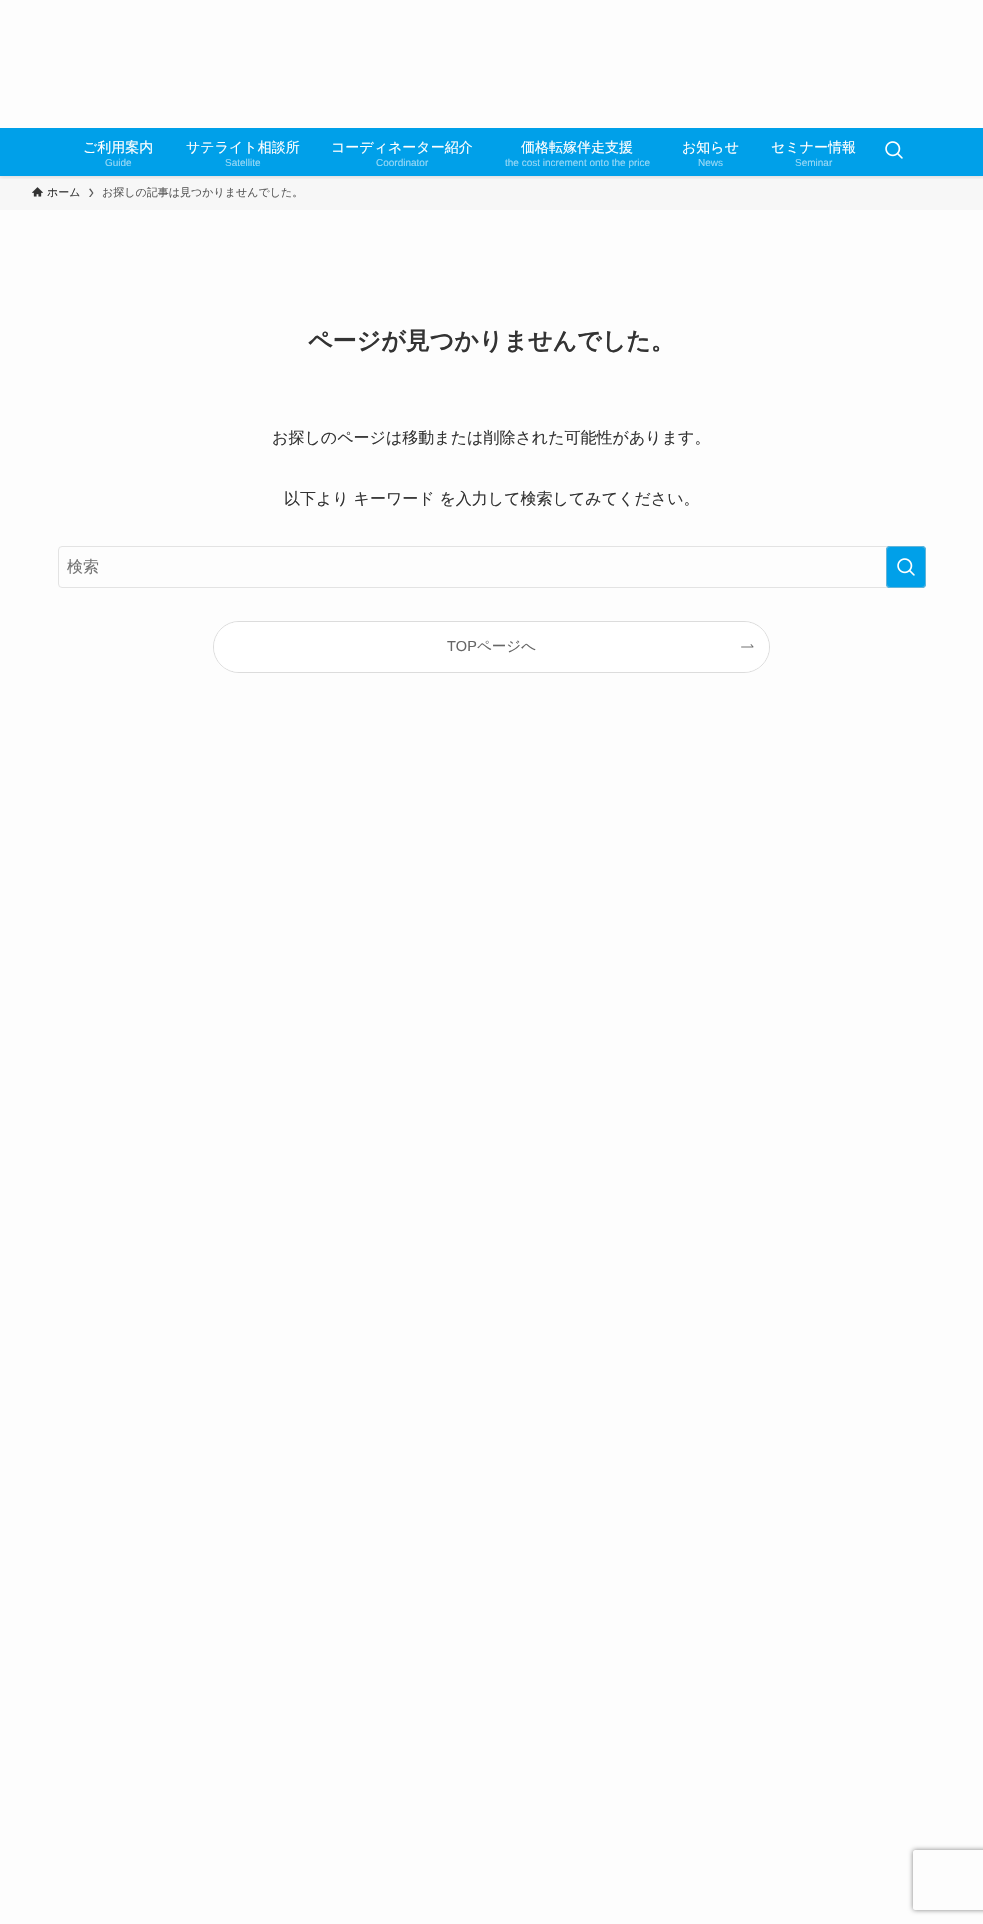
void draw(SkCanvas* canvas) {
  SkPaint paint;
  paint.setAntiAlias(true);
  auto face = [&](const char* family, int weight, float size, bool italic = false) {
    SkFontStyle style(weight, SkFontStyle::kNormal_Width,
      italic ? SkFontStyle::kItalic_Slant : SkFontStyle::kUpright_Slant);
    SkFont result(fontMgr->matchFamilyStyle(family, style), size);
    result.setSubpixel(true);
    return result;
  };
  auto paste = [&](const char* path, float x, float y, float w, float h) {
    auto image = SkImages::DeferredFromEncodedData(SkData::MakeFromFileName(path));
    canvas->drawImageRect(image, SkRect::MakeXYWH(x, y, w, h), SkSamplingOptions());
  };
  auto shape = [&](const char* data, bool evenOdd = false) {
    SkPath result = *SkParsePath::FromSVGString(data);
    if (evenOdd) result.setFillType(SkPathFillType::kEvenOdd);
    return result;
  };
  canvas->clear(0xfffdfdfd);
  paint.setColor(0xfff7f7f7);
  canvas->drawRect(SkRect::MakeXYWH(0, 176, 983, 34), paint);
  canvas->save();
  canvas->clipRect(SkRect::MakeXYWH(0, 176, 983, 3));
  paint.setColor(0x1f000000);
  paint.setMaskFilter(SkMaskFilter::MakeBlur(kNormal_SkBlurStyle, 2));
  canvas->drawRect(SkRect::MakeXYWH(0, 1, 983, 176), paint);
  paint.setMaskFilter(nullptr);
  canvas->restore();
  paint.setColor(0xff00a0e9);
  canvas->drawRect(SkRect::MakeXYWH(0, 128, 983, 48), paint);
  paste("img/1.png", 885, 141, 18, 18);
  paste("img/2.png", 32, 187, 11, 10);
  paint.setColor(0xff5a5a5a);
  canvas->drawPath(shape("M90.5 188.5L89 189L92 193L89 197H90.5L93.5 193Z"), paint);
  paint.setStroke(true);
  paint.setStrokeWidth(1);
  paint.setColor(0xffe3e3e3);
  canvas->drawRoundRect(SkRect::MakeXYWH(58.5f, 546.5f, 867, 41), 3.5f, 3.5f, paint);
  paint.setStroke(false);
  paint.setColor(0xff00a0e9);
  canvas->drawRoundRect(SkRect::MakeXYWH(886, 546, 40, 42), 4, 4, paint);
  paint.setStroke(true);
  paint.setColor(0x80c7c7c7);
  canvas->drawRoundRect(SkRect::MakeXYWH(886.5f, 546.5f, 39, 41), 3.5f, 3.5f, paint);
  paste("img/1.png", 897, 558, 18, 18);
  paint.setColor(0xffdcdcdc);
  canvas->drawRoundRect(SkRect::MakeXYWH(213.5f, 621.5f, 556, 51), 25.5f, 25.5f, paint);
  paint.setStroke(false);
  paint.setColor(0xffffffff);
  canvas->drawRoundRect(SkRect::MakeXYWH(214, 622, 555, 50), 25, 25, paint);
  paste("img/3.png", 741, 644, 13, 4);
  canvas->save();
  canvas->clipPath(shape("M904 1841H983V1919H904ZM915 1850H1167C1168 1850 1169 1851 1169 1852V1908C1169 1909 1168 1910 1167 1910H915C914 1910 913 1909 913 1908V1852C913 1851 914 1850 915 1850Z", true), true);
  paint.setColor(0xff808080);
  paint.setMaskFilter(SkMaskFilter::MakeBlur(kNormal_SkBlurStyle, 2.5f));
  canvas->drawRoundRect(SkRect::MakeXYWH(913, 1850, 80, 60), 2, 2, paint);
  paint.setMaskFilter(nullptr);
  canvas->restore();
  auto f0 = face("WenQuanYi Zen Hei", 500, 14);
  paint.setColor(0xffffffff);
  canvas->drawString("ご利用案内", 83, 152, f0, paint);
  auto f1 = face("Liberation Sans", 400, 10);
  paint.setColor(0xff99d9f6);
  canvas->drawString("Guide", 105, 166, f1, paint);
  paint.setColor(0xffffffff);
  canvas->drawString("サテライト相談所", 186, 152, f0, paint);
  paint.setColor(0xff99d9f6);
  canvas->drawString("Satellite", 225, 166, f1, paint);
  paint.setColor(0xffffffff);
  canvas->drawString("コーディネーター紹介", 331, 152, f0, paint);
  paint.setColor(0xff99d9f6);
  canvas->drawString("Coordinator", 376, 166, f1, paint);
  paint.setColor(0xffffffff);
  canvas->drawString("価格転嫁伴走支援", 521, 152, f0, paint);
  paint.setColor(0xff99d9f6);
  canvas->drawString("the cost increment onto the price", 505, 166, f1, paint);
  paint.setColor(0xffffffff);
  canvas->drawString("お知らせ", 682, 152, f0, paint);
  paint.setColor(0xff99d9f6);
  canvas->drawString("News", 698, 166, f1, paint);
  paint.setColor(0xffffffff);
  canvas->drawString("セミナー情報", 771, 152, f0, paint);
  paint.setColor(0xff99d9f6);
  canvas->drawString("Seminar", 795, 166, f1, paint);
  auto f2 = face("WenQuanYi Zen Hei", 500, 11);
  paint.setColor(0xff333333);
  canvas->drawString("ホーム", 47, 196, f2, paint);
  paint.setColor(0xff5a5a5a);
  canvas->drawString("お探しの記事は見つかりませんでした。", 102, 196, f2, paint);
  auto f3 = face("WenQuanYi Zen Hei", 700, 24);
  paint.setColor(0xff333333);
  canvas->drawString("ページが見つかりませんでした。", 308, 349, f3, paint);
  auto f4 = face("WenQuanYi Zen Hei", 500, 16);
  canvas->drawString("お探しのページは移動または削除された可能性があります。", 272, 443, f4, paint);
  canvas->drawString("以下より キーワード を入力して検索してみてください。", 284, 504, f4, paint);
  paint.setColor(0xff757575);
  canvas->drawString("検索", 67, 572, f4, paint);
  auto f5 = face("Liberation Sans", 400, 14.5f);
  paint.setColor(0xff666666);
  canvas->drawString("TOP", 447, 651, f5, paint);
  auto f6 = face("WenQuanYi Zen Hei", 500, 14.5f);
  canvas->drawString("ページへ", 477, 651, f6, paint);
}
